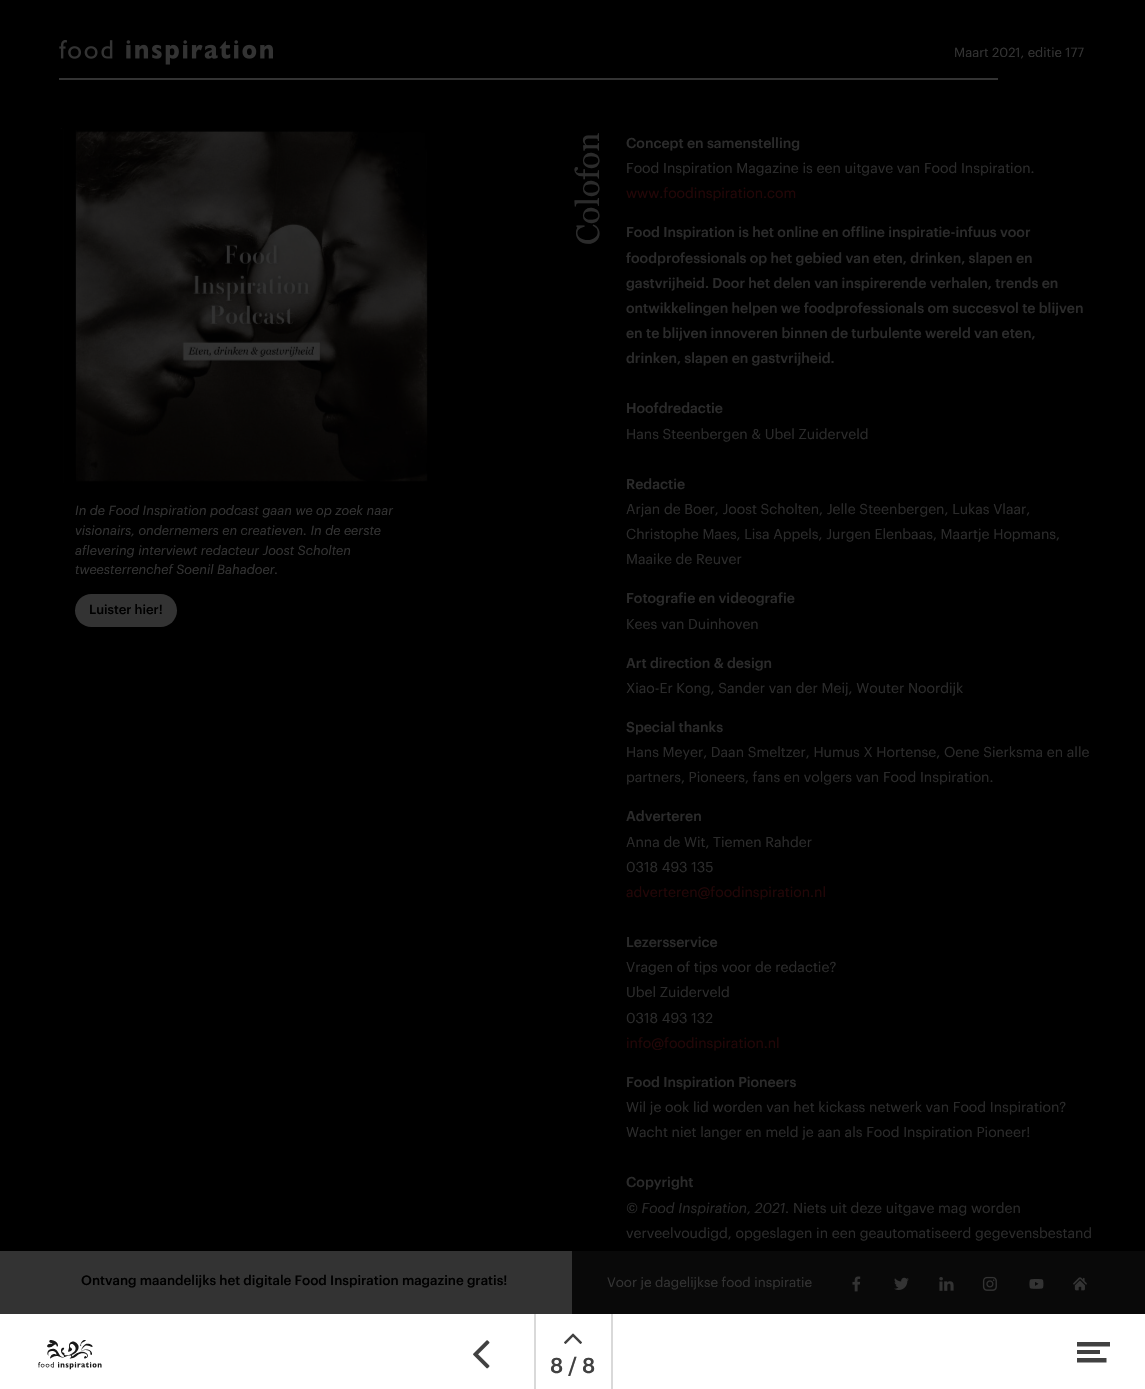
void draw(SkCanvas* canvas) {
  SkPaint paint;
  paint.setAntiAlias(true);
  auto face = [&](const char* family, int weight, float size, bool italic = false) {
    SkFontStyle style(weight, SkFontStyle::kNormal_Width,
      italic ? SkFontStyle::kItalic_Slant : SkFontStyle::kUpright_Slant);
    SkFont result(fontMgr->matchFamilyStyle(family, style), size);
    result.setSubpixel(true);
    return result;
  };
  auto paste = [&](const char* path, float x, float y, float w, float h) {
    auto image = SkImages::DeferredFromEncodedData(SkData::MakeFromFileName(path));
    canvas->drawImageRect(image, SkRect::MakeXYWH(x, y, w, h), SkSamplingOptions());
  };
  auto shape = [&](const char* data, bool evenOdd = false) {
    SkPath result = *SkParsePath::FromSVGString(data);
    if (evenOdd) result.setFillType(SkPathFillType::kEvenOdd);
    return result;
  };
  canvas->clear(0xff000000);
  paste("img/1.png", 59, 40, 214, 25);
  paint.setColor(0xff333333);
  canvas->drawRect(SkRect::MakeXYWH(59, 78, 939, 2), paint);
  paste("img/2.png", 60, 128, 370, 355);
  paint.setColor(0xff000000);
  canvas->drawRect(SkRect::MakeXYWH(60, 129, 2, 354), paint);
  paint.setColor(0xff333333);
  canvas->drawRoundRect(SkRect::MakeXYWH(75, 594, 102, 33), 16.5f, 16.5f, paint);
  canvas->drawRect(SkRect::MakeXYWH(0, 1251, 572, 63), paint);
  paint.setColor(0xff090909);
  canvas->drawRect(SkRect::MakeXYWH(572, 1251, 573, 63), paint);
  paste("img/3.png", 852, 1276, 9, 16);
  paste("img/4.png", 894, 1277, 15, 13);
  paste("img/5.png", 939, 1277, 15, 14);
  paste("img/6.png", 982, 1276, 15, 15);
  paste("img/7.png", 1029, 1279, 15, 10);
  paste("img/8.png", 1073, 1277, 14, 14);
  paint.setColor(0xffffffff);
  canvas->drawRect(SkRect::MakeXYWH(0, 1314, 1145, 75), paint);
  paste("img/9.png", 38, 1340, 64, 30);
  paint.setColor(0xff414141);
  canvas->drawPath(shape("M1077 1342H1110V1346.5H1077ZM1077 1350H1100V1354H1077ZM1077 1358H1106.5V1362.5H1077Z"), paint);
  paste("img/10.png", 473, 1340, 17, 29);
  paint.setColor(0xffd9d9d9);
  canvas->drawRect(SkRect::MakeXYWH(534, 1314, 2, 75), paint);
  paste("img/11.png", 564, 1333, 18, 11);
  canvas->drawRect(SkRect::MakeXYWH(611, 1314, 2, 75), paint);
  auto f0 = face("Graphik", 400, 13);
  paint.setColor(0xff333333);
  canvas->drawString("Maart 2021, editie 177", 954, 57, f0, paint);
  auto f1 = face("Graphik", 400, 13, true);
  {
    const struct { const char* s; float x, y; } items[] = {
      {"In de Food Inspiration podcast gaan we op zoek naar", 75, 515},
      {"visionairs, ondernemers en creatieven. In de eerste", 75, 535},
      {"aflevering interviewt redacteur Joost Scholten", 75, 555},
      {"tweesterrenchef Soenil Bahadoer.", 75, 574},
    };
    for (auto [s, x, y] : items) {
      canvas->drawString(s, x, y, f1, paint);
    }
  }
  auto f2 = face("Graphik", 500, 13);
  paint.setColor(0xff000000);
  canvas->drawString("Luister hier!", 89, 614, f2, paint);
  auto f3 = face("Georgia", 400, 32.5f);
  paint.setColor(0xff2b2b2b);
  canvas->save();
  canvas->rotate(-90, 599, 245);
  canvas->drawString("Colofon", 599, 245, f3, paint);
  canvas->restore();
  auto f4 = face("Graphik", 500, 14);
  canvas->drawString("Concept en samenstelling", 626, 148, f4, paint);
  auto f5 = face("Graphik", 400, 14);
  canvas->drawString("Food Inspiration Magazine is een uitgave van Food Inspiration.", 626, 173, f5, paint);
  paint.setColor(0xff230607);
  canvas->drawString("www.foodinspiration.com", 626, 198, f5, paint);
  paint.setColor(0xff2b2b2b);
  {
    const struct { const char* s; float x, y; } items[] = {
      {"Food Inspiration is het online en offline inspiratie-infuus voor", 626, 237},
      {"foodprofessionals op het gebied van eten, drinken, slapen en", 626, 263},
      {"gastvrijheid. Door het delen van inspirerende verhalen, trends en", 626, 288},
      {"ontwikkelingen helpen we foodprofessionals om succesvol te blijven", 626, 313},
      {"en te blijven innoveren binnen de turbulente wereld van eten,", 626, 338},
      {"drinken, slapen en gastvrijheid.", 626, 363},
      {"Hoofdredactie", 626, 413},
    };
    for (auto [s, x, y] : items) {
      canvas->drawString(s, x, y, f4, paint);
    }
  }
  canvas->drawString("Hans Steenbergen & Ubel Zuiderveld", 626, 439, f5, paint);
  canvas->drawString("Redactie", 626, 489, f4, paint);
  {
    const struct { const char* s; float x, y; } items[] = {
      {"Arjan de Boer, Joost Scholten, Jelle Steenbergen, Lukas Vlaar,", 626, 514},
      {"Christophe Maes, Lisa Appels, Jurgen Elenbaas, Maartje Hopmans,", 626, 539},
      {"Maaike de Reuver", 626, 564},
    };
    for (auto [s, x, y] : items) {
      canvas->drawString(s, x, y, f5, paint);
    }
  }
  canvas->drawString("Fotografie en videografie", 626, 603, f4, paint);
  canvas->drawString("Kees van Duinhoven", 626, 629, f5, paint);
  canvas->drawString("Art direction & design", 626, 668, f4, paint);
  canvas->drawString("Xiao-Er Kong, Sander van der Meij, Wouter Noordijk", 626, 693, f5, paint);
  canvas->drawString("Special thanks", 626, 732, f4, paint);
  canvas->drawString("Hans Meyer, Daan Smeltzer, Humus X Hortense, Oene Sierksma en alle", 626, 757, f5, paint);
  canvas->drawString("partners, Pioneers, fans en volgers van Food Inspiration.", 626, 782, f5, paint);
  canvas->drawString("Adverteren", 626, 821, f4, paint);
  canvas->drawString("Anna de Wit, Tiemen Rahder", 626, 847, f5, paint);
  canvas->drawString("0318 493 135", 626, 872, f5, paint);
  paint.setColor(0xff230607);
  canvas->drawString("adverteren@foodinspiration.nl", 626, 897, f5, paint);
  paint.setColor(0xff2b2b2b);
  canvas->drawString("Lezersservice", 626, 947, f4, paint);
  {
    const struct { const char* s; float x, y; } items[] = {
      {"Vragen of tips voor de redactie?", 626, 972},
      {"Ubel Zuiderveld", 626, 997},
      {"0318 493 132", 626, 1023},
    };
    for (auto [s, x, y] : items) {
      canvas->drawString(s, x, y, f5, paint);
    }
  }
  paint.setColor(0xff230607);
  canvas->drawString("info@foodinspiration.nl", 626, 1048, f5, paint);
  paint.setColor(0xff2b2b2b);
  canvas->drawString("Food Inspiration Pioneers", 626, 1087, f4, paint);
  canvas->drawString("Wil je ook lid worden van het kickass netwerk van Food Inspiration?", 626, 1112, f5, paint);
  canvas->drawString("Wacht niet langer en meld je aan als Food Inspiration Pioneer!", 626, 1137, f5, paint);
  canvas->drawString("Copyright", 626, 1187, f4, paint);
  auto f6 = face("Graphik", 400, 14, true);
  canvas->drawString("© Food Inspiration, 2021.", 626, 1213, f6, paint);
  canvas->drawString("Niets uit deze uitgave mag worden", 793, 1213, f5, paint);
  canvas->drawString("verveelvoudigd, opgeslagen in een geautomatiseerd gegevensbestand", 626, 1238, f5, paint);
  auto f7 = face("Graphik", 500, 13.4f);
  paint.setColor(0xff000000);
  canvas->drawString("Ontvang maandelijks het digitale Food Inspiration magazine gratis!", 81, 1285, f7, paint);
  auto f8 = face("Graphik", 400, 13.4f);
  paint.setColor(0xff333333);
  canvas->drawString("Voor je dagelijkse food inspiratie", 607, 1287, f8, paint);
  auto f9 = face("Graphik", 500, 21);
  paint.setColor(0xff414141);
  canvas->drawString("8 / 8", 550, 1373, f9, paint);
}
